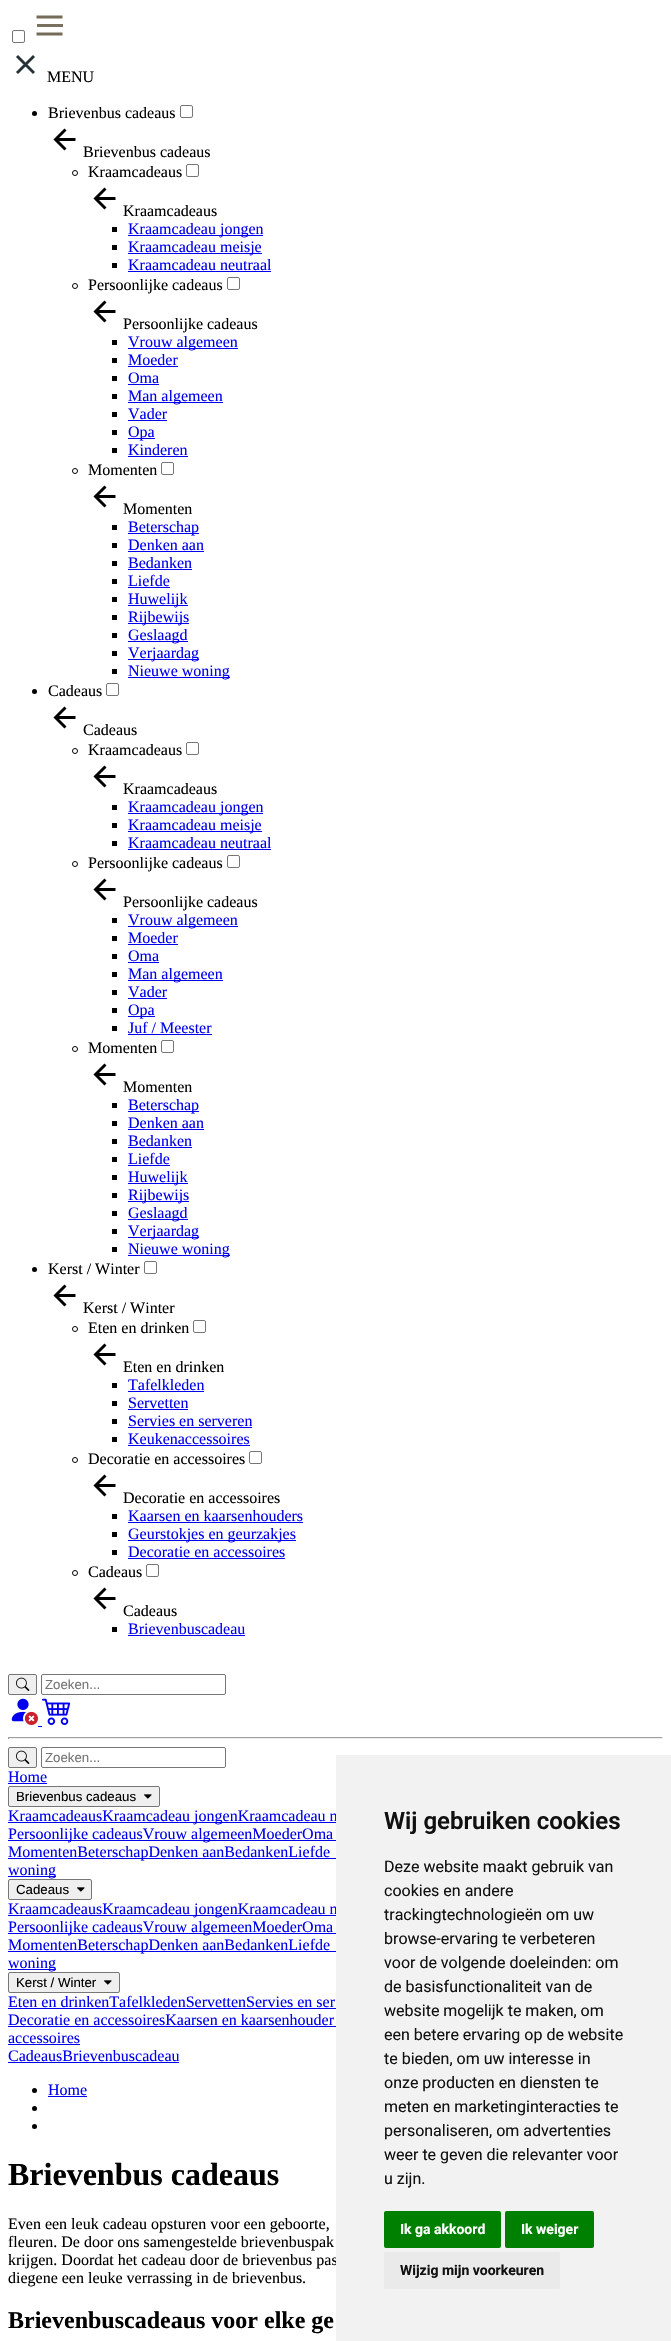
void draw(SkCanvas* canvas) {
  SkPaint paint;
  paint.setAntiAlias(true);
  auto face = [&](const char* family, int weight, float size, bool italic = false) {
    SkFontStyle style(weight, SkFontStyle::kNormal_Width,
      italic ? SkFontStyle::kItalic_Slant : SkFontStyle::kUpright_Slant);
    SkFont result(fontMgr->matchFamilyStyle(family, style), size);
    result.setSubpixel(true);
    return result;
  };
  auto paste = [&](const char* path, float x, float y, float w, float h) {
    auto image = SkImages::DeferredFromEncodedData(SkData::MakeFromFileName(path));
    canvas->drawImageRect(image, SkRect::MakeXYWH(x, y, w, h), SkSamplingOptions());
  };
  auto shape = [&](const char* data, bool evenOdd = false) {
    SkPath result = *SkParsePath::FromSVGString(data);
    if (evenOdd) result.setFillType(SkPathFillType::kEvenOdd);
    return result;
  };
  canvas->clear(0xffffffff);
  paint.setColor(0xff79705e);
  canvas->drawRect(SkRect::MakeXYWH(37, 24, 26, 3), paint);
  paint.setStroke(true);
  paint.setStrokeWidth(2.9f);
  paint.setColor(0xff746b58);
  canvas->drawPath(shape("M36.5 17H62.5M36.5 34H62.5"), paint);
  paint.setStrokeWidth(1);
  paint.setColor(0xff767676);
  canvas->drawRoundRect(SkRect::MakeXYWH(12.5f, 30.5f, 12, 12), 1.5f, 1.5f, paint);
  paint.setStrokeWidth(2.9f);
  paint.setColor(0xff263238);
  canvas->drawPath(shape("M34 56L17 73M17 56L34 73"), paint);
  paint.setStroke(false);
  paint.setColor(0xff000000);
  canvas->drawCircle(34.5f, 113.5f, 2.5f, paint);
  paint.setStroke(true);
  paint.setStrokeWidth(1);
  paint.setColor(0xff767676);
  canvas->drawRoundRect(SkRect::MakeXYWH(180.5f, 105.5f, 12, 12), 1.5f, 1.5f, paint);
  paint.setStrokeWidth(2.9f);
  paint.setColor(0xff000000);
  canvas->drawPath(shape("M75.5 139.5H57M65.5 129.5L55.5 139.5L65.5 149.5"), paint);
  paint.setStrokeWidth(1);
  canvas->drawCircle(75, 173, 2.5f, paint);
  paint.setColor(0xff767676);
  canvas->drawRoundRect(SkRect::MakeXYWH(186.5f, 164.5f, 12, 12), 1.5f, 1.5f, paint);
  paint.setStrokeWidth(2.9f);
  paint.setColor(0xff000000);
  canvas->drawPath(shape("M115.5 198.5H97M105.5 188.5L95.5 198.5L105.5 208.5"), paint);
  paint.setStroke(false);
  {
    const struct { float x, y, w, h; SkColor color; } items[] = {
      {112, 227, 5, 5, 0xff000000},
      {128, 235, 135, 1, 0xff0000ee},
      {112, 245, 5, 5, 0xff000000},
      {128, 253, 134, 1, 0xff0000ee},
      {112, 263, 5, 5, 0xff000000},
      {128, 271, 143, 1, 0xff0000ee},
    };
    for (auto [x, y, w, h, color] : items) {
      paint.setColor(color);
      canvas->drawRect(SkRect::MakeXYWH(x, y, w, h), paint);
    }
  }
  paint.setStroke(true);
  paint.setStrokeWidth(1);
  paint.setColor(0xff000000);
  canvas->drawCircle(75, 286, 2.5f, paint);
  paint.setColor(0xff767676);
  canvas->drawRoundRect(SkRect::MakeXYWH(227.5f, 277.5f, 12, 12), 1.5f, 1.5f, paint);
  paint.setStrokeWidth(2.9f);
  paint.setColor(0xff000000);
  canvas->drawPath(shape("M115.5 311.5H97M105.5 301.5L95.5 311.5L105.5 321.5"), paint);
  paint.setStroke(false);
  {
    const struct { float x, y, w, h; SkColor color; } items[] = {
      {112, 340, 5, 5, 0xff000000},
      {128, 348, 110, 1, 0xff0000ee},
      {112, 358, 5, 5, 0xff000000},
      {128, 366, 50, 1, 0xff0000ee},
      {112, 376, 5, 5, 0xff000000},
      {128, 384, 31, 1, 0xff0000ee},
      {112, 394, 5, 5, 0xff000000},
      {128, 402, 95, 1, 0xff0000ee},
      {112, 412, 5, 5, 0xff000000},
      {128, 420, 39, 1, 0xff0000ee},
      {112, 430, 5, 5, 0xff000000},
      {128, 438, 27, 1, 0xff0000ee},
      {112, 448, 5, 5, 0xff000000},
      {128, 456, 60, 1, 0xff0000ee},
    };
    for (auto [x, y, w, h, color] : items) {
      paint.setColor(color);
      canvas->drawRect(SkRect::MakeXYWH(x, y, w, h), paint);
    }
  }
  paint.setStroke(true);
  paint.setStrokeWidth(1);
  paint.setColor(0xff000000);
  canvas->drawCircle(75, 471, 2.5f, paint);
  paint.setColor(0xff767676);
  canvas->drawRoundRect(SkRect::MakeXYWH(161.5f, 462.5f, 12, 12), 1.5f, 1.5f, paint);
  paint.setStrokeWidth(2.9f);
  paint.setColor(0xff000000);
  canvas->drawPath(shape("M115.5 496.5H97M105.5 486.5L95.5 496.5L105.5 506.5"), paint);
  paint.setStroke(false);
  {
    const struct { float x, y, w, h; SkColor color; } items[] = {
      {112, 525, 5, 5, 0xff000000},
      {128, 533, 71, 1, 0xff0000ee},
      {112, 543, 5, 5, 0xff000000},
      {128, 551, 76, 1, 0xff0000ee},
      {112, 561, 5, 5, 0xff000000},
      {128, 569, 64, 1, 0xff0000ee},
      {112, 579, 5, 5, 0xff000000},
      {128, 587, 42, 1, 0xff0000ee},
      {112, 597, 5, 5, 0xff000000},
      {128, 605, 60, 1, 0xff0000ee},
      {112, 615, 5, 5, 0xff000000},
      {128, 623, 61, 1, 0xff0000ee},
      {112, 633, 5, 5, 0xff000000},
      {128, 641, 60, 1, 0xff0000ee},
      {112, 651, 5, 5, 0xff000000},
      {128, 659, 71, 1, 0xff0000ee},
      {112, 669, 5, 5, 0xff000000},
      {128, 677, 102, 1, 0xff0000ee},
    };
    for (auto [x, y, w, h, color] : items) {
      paint.setColor(color);
      canvas->drawRect(SkRect::MakeXYWH(x, y, w, h), paint);
    }
  }
  paint.setColor(0xff000000);
  canvas->drawCircle(34.5f, 691.5f, 2.5f, paint);
  paint.setStroke(true);
  paint.setStrokeWidth(1);
  paint.setColor(0xff767676);
  canvas->drawRoundRect(SkRect::MakeXYWH(106.5f, 683.5f, 12, 12), 1.5f, 1.5f, paint);
  paint.setStrokeWidth(2.9f);
  paint.setColor(0xff000000);
  canvas->drawPath(shape("M75.5 717.5H57M65.5 707.5L55.5 717.5L65.5 727.5"), paint);
  paint.setStrokeWidth(1);
  canvas->drawCircle(75, 751, 2.5f, paint);
  paint.setColor(0xff767676);
  canvas->drawRoundRect(SkRect::MakeXYWH(186.5f, 742.5f, 12, 12), 1.5f, 1.5f, paint);
  paint.setStrokeWidth(2.9f);
  paint.setColor(0xff000000);
  canvas->drawPath(shape("M115.5 776.5H97M105.5 766.5L95.5 776.5L105.5 786.5"), paint);
  paint.setStroke(false);
  {
    const struct { float x, y, w, h; SkColor color; } items[] = {
      {112, 805, 5, 5, 0xff000000},
      {128, 813, 135, 1, 0xff0000ee},
      {112, 823, 5, 5, 0xff000000},
      {128, 831, 134, 1, 0xff0000ee},
      {112, 841, 5, 5, 0xff000000},
      {128, 849, 143, 1, 0xff0000ee},
    };
    for (auto [x, y, w, h, color] : items) {
      paint.setColor(color);
      canvas->drawRect(SkRect::MakeXYWH(x, y, w, h), paint);
    }
  }
  paint.setStroke(true);
  paint.setStrokeWidth(1);
  paint.setColor(0xff000000);
  canvas->drawCircle(75, 864, 2.5f, paint);
  paint.setColor(0xff767676);
  canvas->drawRoundRect(SkRect::MakeXYWH(227.5f, 855.5f, 12, 12), 1.5f, 1.5f, paint);
  paint.setStrokeWidth(2.9f);
  paint.setColor(0xff000000);
  canvas->drawPath(shape("M115.5 889.5H97M105.5 879.5L95.5 889.5L105.5 899.5"), paint);
  paint.setStroke(false);
  {
    const struct { float x, y, w, h; SkColor color; } items[] = {
      {112, 918, 5, 5, 0xff000000},
      {128, 926, 110, 1, 0xff0000ee},
      {112, 936, 5, 5, 0xff000000},
      {128, 944, 50, 1, 0xff0000ee},
      {112, 954, 5, 5, 0xff000000},
      {128, 962, 31, 1, 0xff0000ee},
      {112, 972, 5, 5, 0xff000000},
      {128, 980, 95, 1, 0xff0000ee},
      {112, 990, 5, 5, 0xff000000},
      {128, 998, 39, 1, 0xff0000ee},
      {112, 1008, 5, 5, 0xff000000},
      {128, 1016, 27, 1, 0xff0000ee},
      {112, 1026, 5, 5, 0xff000000},
      {128, 1034, 84, 1, 0xff0000ee},
    };
    for (auto [x, y, w, h, color] : items) {
      paint.setColor(color);
      canvas->drawRect(SkRect::MakeXYWH(x, y, w, h), paint);
    }
  }
  paint.setStroke(true);
  paint.setStrokeWidth(1);
  paint.setColor(0xff000000);
  canvas->drawCircle(75, 1049, 2.5f, paint);
  paint.setColor(0xff767676);
  canvas->drawRoundRect(SkRect::MakeXYWH(161.5f, 1040.5f, 12, 12), 1.5f, 1.5f, paint);
  paint.setStrokeWidth(2.9f);
  paint.setColor(0xff000000);
  canvas->drawPath(shape("M115.5 1074.5H97M105.5 1064.5L95.5 1074.5L105.5 1084.5"), paint);
  paint.setStroke(false);
  {
    const struct { float x, y, w, h; SkColor color; } items[] = {
      {112, 1103, 5, 5, 0xff000000},
      {128, 1111, 71, 1, 0xff0000ee},
      {112, 1121, 5, 5, 0xff000000},
      {128, 1129, 76, 1, 0xff0000ee},
      {112, 1139, 5, 5, 0xff000000},
      {128, 1147, 64, 1, 0xff0000ee},
      {112, 1157, 5, 5, 0xff000000},
      {128, 1165, 42, 1, 0xff0000ee},
      {112, 1175, 5, 5, 0xff000000},
      {128, 1183, 60, 1, 0xff0000ee},
      {112, 1193, 5, 5, 0xff000000},
      {128, 1201, 61, 1, 0xff0000ee},
      {112, 1211, 5, 5, 0xff000000},
      {128, 1219, 60, 1, 0xff0000ee},
      {112, 1229, 5, 5, 0xff000000},
      {128, 1237, 71, 1, 0xff0000ee},
      {112, 1247, 5, 5, 0xff000000},
      {128, 1255, 102, 1, 0xff0000ee},
    };
    for (auto [x, y, w, h, color] : items) {
      paint.setColor(color);
      canvas->drawRect(SkRect::MakeXYWH(x, y, w, h), paint);
    }
  }
  paint.setColor(0xff000000);
  canvas->drawCircle(34.5f, 1269.5f, 2.5f, paint);
  paint.setStroke(true);
  paint.setStrokeWidth(1);
  paint.setColor(0xff767676);
  canvas->drawRoundRect(SkRect::MakeXYWH(144.5f, 1261.5f, 12, 12), 1.5f, 1.5f, paint);
  paint.setStrokeWidth(2.9f);
  paint.setColor(0xff000000);
  canvas->drawPath(shape("M75.5 1295.5H57M65.5 1285.5L55.5 1295.5L65.5 1305.5"), paint);
  paint.setStrokeWidth(1);
  canvas->drawCircle(75, 1329, 2.5f, paint);
  paint.setColor(0xff767676);
  canvas->drawRoundRect(SkRect::MakeXYWH(193.5f, 1320.5f, 12, 12), 1.5f, 1.5f, paint);
  paint.setStrokeWidth(2.9f);
  paint.setColor(0xff000000);
  canvas->drawPath(shape("M115.5 1354.5H97M105.5 1344.5L95.5 1354.5L105.5 1364.5"), paint);
  paint.setStroke(false);
  {
    const struct { float x, y, w, h; SkColor color; } items[] = {
      {112, 1383, 5, 5, 0xff000000},
      {128, 1391, 76, 1, 0xff0000ee},
      {112, 1401, 5, 5, 0xff000000},
      {128, 1409, 60, 1, 0xff0000ee},
      {112, 1419, 5, 5, 0xff000000},
      {128, 1427, 124, 1, 0xff0000ee},
      {112, 1437, 5, 5, 0xff000000},
      {128, 1445, 122, 1, 0xff0000ee},
    };
    for (auto [x, y, w, h, color] : items) {
      paint.setColor(color);
      canvas->drawRect(SkRect::MakeXYWH(x, y, w, h), paint);
    }
  }
  paint.setStroke(true);
  paint.setStrokeWidth(1);
  paint.setColor(0xff000000);
  canvas->drawCircle(75, 1460, 2.5f, paint);
  paint.setColor(0xff767676);
  canvas->drawRoundRect(SkRect::MakeXYWH(249.5f, 1451.5f, 12, 12), 1.5f, 1.5f, paint);
  paint.setStrokeWidth(2.9f);
  paint.setColor(0xff000000);
  canvas->drawPath(shape("M115.5 1485.5H97M105.5 1475.5L95.5 1485.5L105.5 1495.5"), paint);
  paint.setStroke(false);
  {
    const struct { float x, y, w, h; SkColor color; } items[] = {
      {112, 1514, 5, 5, 0xff000000},
      {128, 1522, 175, 1, 0xff0000ee},
      {112, 1532, 5, 5, 0xff000000},
      {128, 1540, 168, 1, 0xff0000ee},
      {112, 1550, 5, 5, 0xff000000},
      {128, 1558, 157, 1, 0xff0000ee},
    };
    for (auto [x, y, w, h, color] : items) {
      paint.setColor(color);
      canvas->drawRect(SkRect::MakeXYWH(x, y, w, h), paint);
    }
  }
  paint.setStroke(true);
  paint.setStrokeWidth(1);
  paint.setColor(0xff000000);
  canvas->drawCircle(75, 1573, 2.5f, paint);
  paint.setColor(0xff767676);
  canvas->drawRoundRect(SkRect::MakeXYWH(146.5f, 1564.5f, 12, 12), 1.5f, 1.5f, paint);
  paint.setStrokeWidth(2.9f);
  paint.setColor(0xff000000);
  canvas->drawPath(shape("M115.5 1598.5H97M105.5 1588.5L95.5 1598.5L105.5 1608.5"), paint);
  paint.setStroke(false);
  canvas->drawRect(SkRect::MakeXYWH(112, 1627, 5, 5), paint);
  paint.setColor(0xff0000ee);
  canvas->drawRect(SkRect::MakeXYWH(128, 1635, 117, 1), paint);
  paint.setColor(0xffefefef);
  canvas->drawRoundRect(SkRect::MakeXYWH(8.5f, 1674.5f, 28, 20), 1.5f, 1.5f, paint);
  paint.setStroke(true);
  paint.setStrokeWidth(1);
  paint.setColor(0xff767676);
  canvas->drawRoundRect(SkRect::MakeXYWH(8.5f, 1674.5f, 28, 20), 1.5f, 1.5f, paint);
  paste("img/1.png", 16, 1677, 14, 14);
  canvas->drawRoundRect(SkRect::MakeXYWH(41.5f, 1674.5f, 184, 20), 1.5f, 1.5f, paint);
  paste("img/2.png", 11, 1698, 27, 27);
  paste("img/3.png", 42, 1698, 29, 27);
  paint.setStroke(false);
  {
    const struct { float x, y, w, h; SkColor color; } items[] = {
      {38, 1726, 4, 1, 0xff0000ee},
      {8, 1737, 655, 1, 0xff9f9f9f},
      {662, 1737, 1, 2, 0xffeeeeee},
      {8, 1738, 655, 1, 0xffeeeeee},
      {8, 1737, 1, 2, 0xff9f9f9f},
    };
    for (auto [x, y, w, h, color] : items) {
      paint.setColor(color);
      canvas->drawRect(SkRect::MakeXYWH(x, y, w, h), paint);
    }
  }
  paint.setColor(0xffefefef);
  canvas->drawRoundRect(SkRect::MakeXYWH(8.5f, 1747.5f, 28, 20), 1.5f, 1.5f, paint);
  paint.setStroke(true);
  paint.setColor(0xff767676);
  canvas->drawRoundRect(SkRect::MakeXYWH(8.5f, 1747.5f, 28, 20), 1.5f, 1.5f, paint);
  paste("img/1.png", 16, 1750, 14, 14);
  canvas->drawRoundRect(SkRect::MakeXYWH(41.5f, 1747.5f, 184, 20), 1.5f, 1.5f, paint);
  paint.setStroke(false);
  paint.setColor(0xff0000ee);
  canvas->drawRect(SkRect::MakeXYWH(8, 1783, 39, 1), paint);
  paint.setColor(0xffefefef);
  canvas->drawRoundRect(SkRect::MakeXYWH(8.5f, 1786.5f, 151, 20), 1.5f, 1.5f, paint);
  paint.setStroke(true);
  paint.setColor(0xff767676);
  canvas->drawRoundRect(SkRect::MakeXYWH(8.5f, 1786.5f, 151, 20), 1.5f, 1.5f, paint);
  paste("img/4.png", 144, 1794, 8, 5);
  paint.setStroke(false);
  {
    const struct { float x, y, w, h; SkColor color; } items[] = {
      {8, 1822, 328, 1, 0xff0000ee},
      {8, 1840, 244, 1, 0xff0000ee},
      {252, 1840, 84, 1, 0xff0000ee},
      {8, 1858, 216, 1, 0xff0000ee},
      {224, 1858, 112, 1, 0xff0000ee},
      {8, 1876, 48, 1, 0xff0000ee},
    };
    for (auto [x, y, w, h, color] : items) {
      paint.setColor(color);
      canvas->drawRect(SkRect::MakeXYWH(x, y, w, h), paint);
    }
  }
  paint.setColor(0xffefefef);
  canvas->drawRoundRect(SkRect::MakeXYWH(8.5f, 1879.5f, 83, 20), 1.5f, 1.5f, paint);
  paint.setStroke(true);
  paint.setColor(0xff767676);
  canvas->drawRoundRect(SkRect::MakeXYWH(8.5f, 1879.5f, 83, 20), 1.5f, 1.5f, paint);
  paste("img/4.png", 77, 1887, 8, 5);
  paint.setStroke(false);
  {
    const struct { float x, y, w, h; SkColor color; } items[] = {
      {8, 1915, 328, 1, 0xff0000ee},
      {8, 1933, 244, 1, 0xff0000ee},
      {252, 1933, 84, 1, 0xff0000ee},
      {8, 1951, 216, 1, 0xff0000ee},
      {224, 1951, 112, 1, 0xff0000ee},
      {8, 1969, 48, 1, 0xff0000ee},
    };
    for (auto [x, y, w, h, color] : items) {
      paint.setColor(color);
      canvas->drawRect(SkRect::MakeXYWH(x, y, w, h), paint);
    }
  }
  paint.setColor(0xffefefef);
  canvas->drawRoundRect(SkRect::MakeXYWH(8.5f, 1972.5f, 111, 20), 1.5f, 1.5f, paint);
  paint.setStroke(true);
  paint.setColor(0xff767676);
  canvas->drawRoundRect(SkRect::MakeXYWH(8.5f, 1972.5f, 111, 20), 1.5f, 1.5f, paint);
  paste("img/4.png", 104, 1980, 8, 5);
  paint.setStroke(false);
  {
    const struct { float x, y, w, h; SkColor color; } items[] = {
      {8, 2008, 328, 1, 0xff0000ee},
      {8, 2026, 332, 1, 0xff0000ee},
      {8, 2044, 72, 1, 0xff0000ee},
      {8, 2062, 171, 1, 0xff0000ee},
    };
    for (auto [x, y, w, h, color] : items) {
      paint.setColor(color);
      canvas->drawRect(SkRect::MakeXYWH(x, y, w, h), paint);
    }
  }
  paint.setColor(0xff000000);
  canvas->drawCircle(34.5f, 2090.5f, 2.5f, paint);
  paint.setColor(0xff0000ee);
  canvas->drawRect(SkRect::MakeXYWH(48, 2096, 39, 1), paint);
  paint.setColor(0xff000000);
  canvas->drawCircle(34.5f, 2108.5f, 2.5f, paint);
  canvas->drawCircle(34.5f, 2126.5f, 2.5f, paint);
  auto f0 = face("Liberation Serif", 400, 16);
  {
    const struct { const char* s; float x, y; } items[] = {
      {"MENU", 47, 82},
      {"Brievenbus cadeaus", 48, 118},
      {"Brievenbus cadeaus", 83, 157},
      {"Kraamcadeaus", 88, 177},
      {"Kraamcadeaus", 123, 216},
    };
    for (auto [s, x, y] : items) {
      canvas->drawString(s, x, y, f0, paint);
    }
  }
  paint.setColor(0xff0000ee);
  {
    const struct { const char* s; float x, y; } items[] = {
      {"Kraamcadeau jongen", 128, 234},
      {"Kraamcadeau meisje", 128, 252},
      {"Kraamcadeau neutraal", 128, 270},
    };
    for (auto [s, x, y] : items) {
      canvas->drawString(s, x, y, f0, paint);
    }
  }
  paint.setColor(0xff000000);
  canvas->drawString("Persoonlijke cadeaus", 88, 290, f0, paint);
  canvas->drawString("Persoonlijke cadeaus", 123, 329, f0, paint);
  paint.setColor(0xff0000ee);
  {
    const struct { const char* s; float x, y; } items[] = {
      {"Vrouw algemeen", 128, 347},
      {"Moeder", 128, 365},
      {"Oma", 128, 383},
      {"Man algemeen", 128, 401},
      {"Vader", 128, 419},
      {"Opa", 128, 437},
      {"Kinderen", 128, 455},
    };
    for (auto [s, x, y] : items) {
      canvas->drawString(s, x, y, f0, paint);
    }
  }
  paint.setColor(0xff000000);
  canvas->drawString("Momenten", 88, 475, f0, paint);
  canvas->drawString("Momenten", 123, 514, f0, paint);
  paint.setColor(0xff0000ee);
  {
    const struct { const char* s; float x, y; } items[] = {
      {"Beterschap", 128, 532},
      {"Denken aan", 128, 550},
      {"Bedanken", 128, 568},
      {"Liefde", 128, 586},
      {"Huwelijk", 128, 604},
      {"Rijbewijs", 128, 622},
      {"Geslaagd", 128, 640},
      {"Verjaardag", 128, 658},
      {"Nieuwe woning", 128, 676},
    };
    for (auto [s, x, y] : items) {
      canvas->drawString(s, x, y, f0, paint);
    }
  }
  paint.setColor(0xff000000);
  {
    const struct { const char* s; float x, y; } items[] = {
      {"Cadeaus", 48, 696},
      {"Cadeaus", 83, 735},
      {"Kraamcadeaus", 88, 755},
      {"Kraamcadeaus", 123, 794},
    };
    for (auto [s, x, y] : items) {
      canvas->drawString(s, x, y, f0, paint);
    }
  }
  paint.setColor(0xff0000ee);
  {
    const struct { const char* s; float x, y; } items[] = {
      {"Kraamcadeau jongen", 128, 812},
      {"Kraamcadeau meisje", 128, 830},
      {"Kraamcadeau neutraal", 128, 848},
    };
    for (auto [s, x, y] : items) {
      canvas->drawString(s, x, y, f0, paint);
    }
  }
  paint.setColor(0xff000000);
  canvas->drawString("Persoonlijke cadeaus", 88, 868, f0, paint);
  canvas->drawString("Persoonlijke cadeaus", 123, 907, f0, paint);
  paint.setColor(0xff0000ee);
  {
    const struct { const char* s; float x, y; } items[] = {
      {"Vrouw algemeen", 128, 925},
      {"Moeder", 128, 943},
      {"Oma", 128, 961},
      {"Man algemeen", 128, 979},
      {"Vader", 128, 997},
      {"Opa", 128, 1015},
      {"Juf / Meester", 128, 1033},
    };
    for (auto [s, x, y] : items) {
      canvas->drawString(s, x, y, f0, paint);
    }
  }
  paint.setColor(0xff000000);
  canvas->drawString("Momenten", 88, 1053, f0, paint);
  canvas->drawString("Momenten", 123, 1092, f0, paint);
  paint.setColor(0xff0000ee);
  {
    const struct { const char* s; float x, y; } items[] = {
      {"Beterschap", 128, 1110},
      {"Denken aan", 128, 1128},
      {"Bedanken", 128, 1146},
      {"Liefde", 128, 1164},
      {"Huwelijk", 128, 1182},
      {"Rijbewijs", 128, 1200},
      {"Geslaagd", 128, 1218},
      {"Verjaardag", 128, 1236},
      {"Nieuwe woning", 128, 1254},
    };
    for (auto [s, x, y] : items) {
      canvas->drawString(s, x, y, f0, paint);
    }
  }
  paint.setColor(0xff000000);
  {
    const struct { const char* s; float x, y; } items[] = {
      {"Kerst / Winter", 48, 1274},
      {"Kerst / Winter", 83, 1313},
      {"Eten en drinken", 88, 1333},
      {"Eten en drinken", 123, 1372},
    };
    for (auto [s, x, y] : items) {
      canvas->drawString(s, x, y, f0, paint);
    }
  }
  paint.setColor(0xff0000ee);
  {
    const struct { const char* s; float x, y; } items[] = {
      {"Tafelkleden", 128, 1390},
      {"Servetten", 128, 1408},
      {"Servies en serveren", 128, 1426},
      {"Keukenaccessoires", 128, 1444},
    };
    for (auto [s, x, y] : items) {
      canvas->drawString(s, x, y, f0, paint);
    }
  }
  paint.setColor(0xff000000);
  canvas->drawString("Decoratie en accessoires", 88, 1464, f0, paint);
  canvas->drawString("Decoratie en accessoires", 123, 1503, f0, paint);
  paint.setColor(0xff0000ee);
  {
    const struct { const char* s; float x, y; } items[] = {
      {"Kaarsen en kaarsenhouders", 128, 1521},
      {"Geurstokjes en geurzakjes", 128, 1539},
      {"Decoratie en accessoires", 128, 1557},
    };
    for (auto [s, x, y] : items) {
      canvas->drawString(s, x, y, f0, paint);
    }
  }
  paint.setColor(0xff000000);
  canvas->drawString("Cadeaus", 88, 1577, f0, paint);
  canvas->drawString("Cadeaus", 123, 1616, f0, paint);
  paint.setColor(0xff0000ee);
  canvas->drawString("Brievenbuscadeau", 128, 1634, f0, paint);
  auto f1 = face("Liberation Sans", 400, 13.25f);
  paint.setColor(0xff757575);
  canvas->drawString("Zoeken...", 45, 1689, f1, paint);
  canvas->drawString("Zoeken...", 45, 1762, f1, paint);
  paint.setColor(0xff0000ee);
  canvas->drawString("Home", 8, 1782, f0, paint);
  paint.setColor(0xff000000);
  canvas->drawString("Brievenbus cadeaus", 16, 1801, f1, paint);
  paint.setColor(0xff0000ee);
  {
    const struct { const char* s; float x, y; } items[] = {
      {"KraamcadeausKraamcadeau jongenKraamcadeau m", 8, 1821},
      {"Persoonlijke cadeausVrouw algemeenMoederOma", 8, 1839},
      {"MomentenBeterschapDenken aanBedankenLiefde", 8, 1857},
      {"woning", 8, 1875},
    };
    for (auto [s, x, y] : items) {
      canvas->drawString(s, x, y, f0, paint);
    }
  }
  paint.setColor(0xff000000);
  canvas->drawString("Cadeaus", 16, 1894, f1, paint);
  paint.setColor(0xff0000ee);
  {
    const struct { const char* s; float x, y; } items[] = {
      {"KraamcadeausKraamcadeau jongenKraamcadeau m", 8, 1914},
      {"Persoonlijke cadeausVrouw algemeenMoederOma", 8, 1932},
      {"MomentenBeterschapDenken aanBedankenLiefde", 8, 1950},
      {"woning", 8, 1968},
    };
    for (auto [s, x, y] : items) {
      canvas->drawString(s, x, y, f0, paint);
    }
  }
  paint.setColor(0xff000000);
  canvas->drawString("Kerst / Winter", 16, 1987, f1, paint);
  paint.setColor(0xff0000ee);
  {
    const struct { const char* s; float x, y; } items[] = {
      {"Eten en drinkenTafelkledenServettenServies en ser", 8, 2007},
      {"Decoratie en accessoiresKaarsen en kaarsenhouder", 8, 2025},
      {"accessoires", 8, 2043},
      {"CadeausBrievenbuscadeau", 8, 2061},
      {"Home", 48, 2095},
    };
    for (auto [s, x, y] : items) {
      canvas->drawString(s, x, y, f0, paint);
    }
  }
  auto f2 = face("Liberation Serif", 700, 32);
  paint.setColor(0xff000000);
  canvas->drawString("Brievenbus cadeaus", 8, 2185, f2, paint);
  {
    const struct { const char* s; float x, y; } items[] = {
      {"Even een leuk cadeau opsturen voor een geboorte,", 8, 2229},
      {"fleuren. De door ons samengestelde brievenbuspak", 8, 2247},
      {"krijgen. Doordat het cadeau door de brievenbus pas", 8, 2265},
      {"diegene een leuke verrassing in de brievenbus.", 8, 2283},
    };
    for (auto [s, x, y] : items) {
      canvas->drawString(s, x, y, f0, paint);
    }
  }
  auto f3 = face("Liberation Serif", 700, 24);
  canvas->drawString("Brievenbuscadeaus voor elke ge", 8, 2328, f3, paint);
  paint.setColor(0xfff2f2f2);
  canvas->drawRect(SkRect::MakeXYWH(336, 1755, 335, 586), paint);
  auto f4 = face("Roboto", 600, 24);
  paint.setColor(0xff111111);
  canvas->drawString("Wij gebruiken cookies", 384, 1829, f4, paint);
  auto f5 = face("Roboto", 400, 16);
  {
    const struct { const char* s; float x, y; } items[] = {
      {"Deze website maakt gebruik van", 384, 1872},
      {"cookies en andere", 384, 1896},
      {"trackingtechnologieën om uw", 384, 1920},
      {"browse-ervaring te verbeteren", 384, 1944},
      {"voor de volgende doeleinden: om", 384, 1968},
      {"de basisfunctionaliteit van de", 384, 1992},
      {"website mogelijk te maken, om", 384, 2016},
      {"een betere ervaring op de website", 384, 2040},
      {"te bieden, om uw interesse in", 384, 2064},
      {"onze producten en diensten te", 384, 2088},
      {"meten en marketinginteracties te", 384, 2112},
      {"personaliseren, om advertenties", 384, 2136},
      {"weer te geven die relevanter voor", 384, 2160},
      {"u zijn.", 384, 2184},
    };
    for (auto [s, x, y] : items) {
      canvas->drawString(s, x, y, f5, paint);
    }
  }
  paint.setColor(0xff008000);
  canvas->drawRoundRect(SkRect::MakeXYWH(384, 2211, 117, 37), 2, 2, paint);
  auto f6 = face("Roboto", 700, 14);
  paint.setColor(0xffffffff);
  canvas->drawString("Ik ga akkoord", 400, 2234, f6, paint);
  paint.setColor(0xff008000);
  canvas->drawRoundRect(SkRect::MakeXYWH(505, 2211, 89, 37), 2, 2, paint);
  paint.setColor(0xffffffff);
  canvas->drawString("Ik weiger", 521, 2234, f6, paint);
  paint.setColor(0xffeaeaea);
  canvas->drawRoundRect(SkRect::MakeXYWH(384, 2252, 176, 37), 2, 2, paint);
  paint.setColor(0xff111111);
  canvas->drawString("Wijzig mijn voorkeuren", 400, 2275, f6, paint);
}
